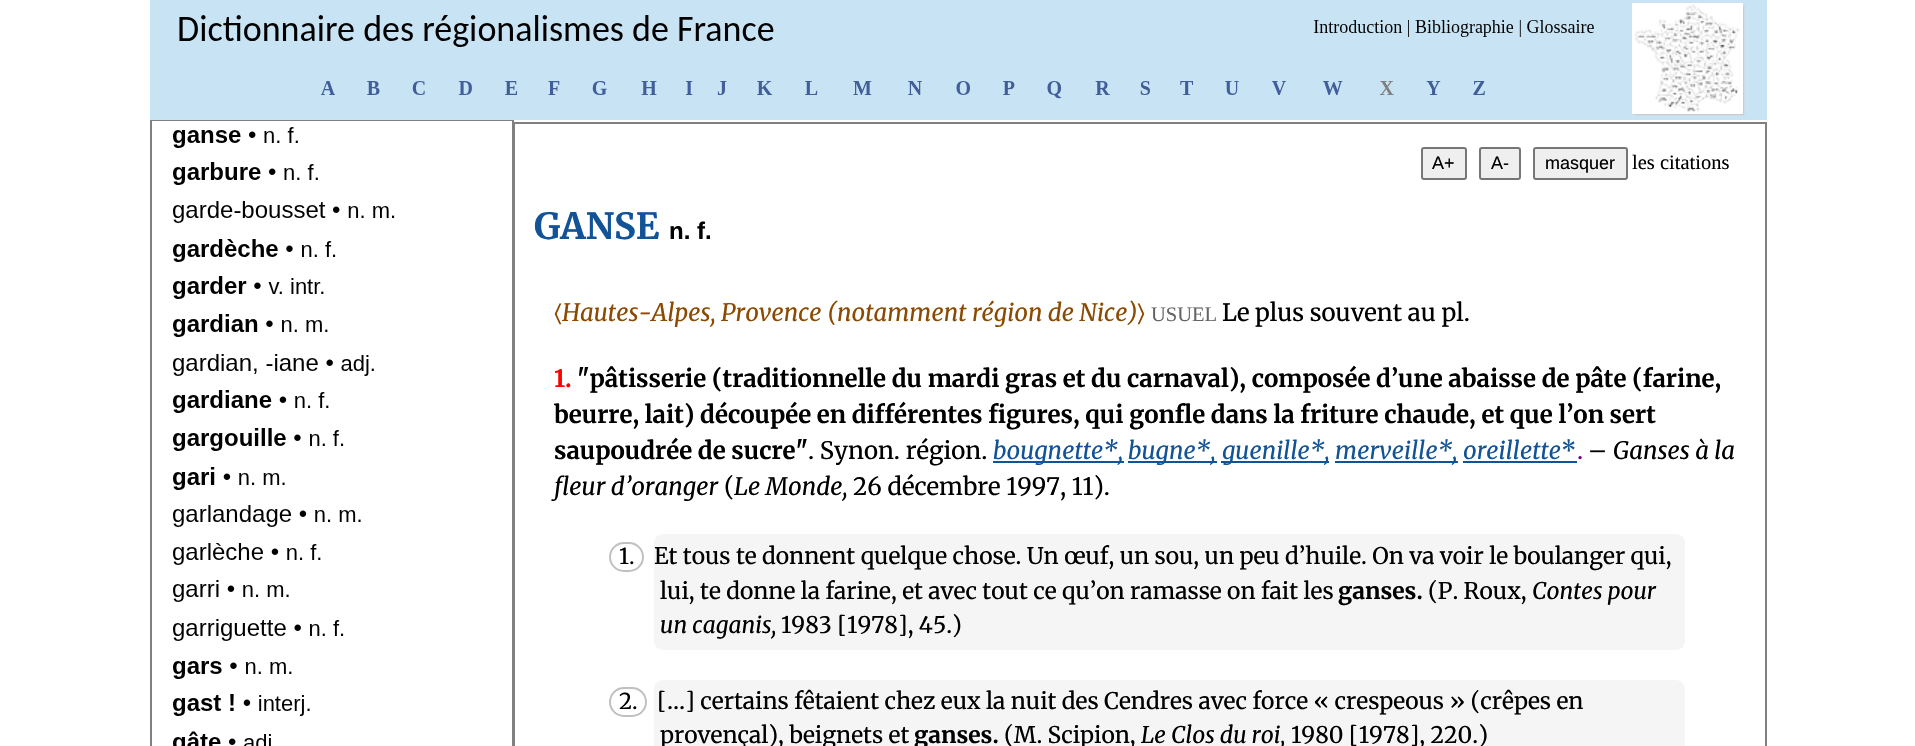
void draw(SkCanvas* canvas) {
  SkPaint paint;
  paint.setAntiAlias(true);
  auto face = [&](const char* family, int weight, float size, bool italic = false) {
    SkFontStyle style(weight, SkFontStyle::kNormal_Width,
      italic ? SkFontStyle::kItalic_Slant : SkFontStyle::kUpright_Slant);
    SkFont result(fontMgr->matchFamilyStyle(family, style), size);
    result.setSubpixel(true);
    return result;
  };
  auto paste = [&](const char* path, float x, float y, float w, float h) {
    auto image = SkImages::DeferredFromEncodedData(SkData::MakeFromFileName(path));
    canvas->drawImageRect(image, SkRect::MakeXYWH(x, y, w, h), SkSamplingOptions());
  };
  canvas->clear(0xffffffff);
  paste("img/1.png", 150, 0, 1617, 120);
  {
    const struct { float x, y, w, h; SkColor color; } items[] = {
      {150, 120, 363, 1, 0xff808080},
      {512, 120, 2, 626, 0xff808080},
      {150, 120, 2, 626, 0xff808080},
    };
    for (auto [x, y, w, h, color] : items) {
      paint.setColor(color);
      canvas->drawRect(SkRect::MakeXYWH(x, y, w, h), paint);
    }
  }
  paste("img/2.png", 152, 121, 360, 625);
  paint.setStroke(true);
  paint.setStrokeWidth(2);
  canvas->drawRect(SkRect::MakeXYWH(514, 123, 1252, 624), paint);
  paint.setStroke(false);
  paint.setColor(0xffefefef);
  canvas->drawRoundRect(SkRect::MakeXYWH(1422, 148, 44, 31), 2, 2, paint);
  paint.setStroke(true);
  paint.setColor(0xff767676);
  canvas->drawRoundRect(SkRect::MakeXYWH(1422, 148, 44, 31), 2, 2, paint);
  paint.setStroke(false);
  paint.setColor(0xffefefef);
  canvas->drawRoundRect(SkRect::MakeXYWH(1480, 148, 40, 31), 2, 2, paint);
  paint.setStroke(true);
  paint.setColor(0xff767676);
  canvas->drawRoundRect(SkRect::MakeXYWH(1480, 148, 40, 31), 2, 2, paint);
  paint.setStroke(false);
  paint.setColor(0xffefefef);
  canvas->drawRoundRect(SkRect::MakeXYWH(1534, 148, 93, 31), 2, 2, paint);
  paint.setStroke(true);
  paint.setColor(0xff767676);
  canvas->drawRoundRect(SkRect::MakeXYWH(1534, 148, 93, 31), 2, 2, paint);
  paint.setStroke(false);
  {
    const struct { float x, y, w, h; SkColor color; } items[] = {
      {993, 461, 131, 2, 0xff115396},
      {1128, 461, 89, 2, 0xff115396},
      {1221, 461, 108, 2, 0xff115396},
      {1335, 461, 123, 2, 0xff115396},
      {1463, 461, 114, 2, 0xff115396},
    };
    for (auto [x, y, w, h, color] : items) {
      paint.setColor(color);
      canvas->drawRect(SkRect::MakeXYWH(x, y, w, h), paint);
    }
  }
  paint.setColor(0xfff5f5f5);
  canvas->drawRoundRect(SkRect::MakeXYWH(654, 534, 1031, 116), 9, 9, paint);
  paint.setStroke(true);
  paint.setColor(0xffc0c0c0);
  canvas->drawRoundRect(SkRect::MakeXYWH(610, 543, 33, 28), 14, 14, paint);
  paint.setStroke(false);
  paint.setColor(0xfff5f5f5);
  canvas->drawRoundRect(SkRect::MakeXYWH(654, 680, 1031, 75), 9, 9, paint);
  paint.setStroke(true);
  paint.setColor(0xffc0c0c0);
  canvas->drawRoundRect(SkRect::MakeXYWH(610, 688, 36, 28), 14, 14, paint);
  auto f0 = face("Liberation Sans", 400, 18);
  paint.setStroke(false);
  paint.setColor(0xff000000);
  {
    const struct { const char* s; float x, y; } items[] = {
      {"A+", 1432, 169},
      {"A-", 1491, 169},
      {"masquer", 1545, 169},
    };
    for (auto [s, x, y] : items) {
      canvas->drawString(s, x, y, f0, paint);
    }
  }
  auto f1 = face("Liberation Serif", 400, 20.5f);
  canvas->drawString("les citations", 1632, 169, f1, paint);
  auto f2 = face("Merriweather", 700, 36);
  paint.setColor(0xff115396);
  canvas->drawString("GANSE", 534, 239, f2, paint);
  auto f3 = face("Liberation Sans", 700, 24);
  paint.setColor(0xff000000);
  canvas->drawString("n. f.", 669, 239, f3, paint);
  auto f4 = face("FreeSans", 400, 24);
  paint.setColor(0xff8c4900);
  canvas->drawString("〈", 554, 321, f4, paint);
  auto f5 = face("Merriweather", 400, 24, true);
  canvas->drawString("Hautes-Alpes, Provence (notamment région de Nice)", 562, 321, f5, paint);
  canvas->drawString("〉", 1137, 321, f4, paint);
  paint.setColor(0xff646464);
  canvas->drawString("USUEL", 1151, 321, f1, paint);
  auto f6 = face("Merriweather", 400, 24);
  paint.setColor(0xff000000);
  canvas->drawString("Le plus souvent au pl.", 1222, 321, f6, paint);
  auto f7 = face("Merriweather", 700, 24);
  paint.setColor(0xffff0000);
  canvas->drawString("1.", 554, 387, f7, paint);
  paint.setColor(0xff000000);
  {
    const struct { const char* s; float x, y; } items[] = {
      {"\"pâtisserie (traditionnelle du mardi gras et du carnaval), composée d’une abaisse de pâte (farine,", 577, 387},
      {"beurre, lait) découpée en différentes figures, qui gonfle dans la friture chaude, et que l’on sert", 554, 423},
      {"saupoudrée de sucre\"", 554, 459},
    };
    for (auto [s, x, y] : items) {
      canvas->drawString(s, x, y, f7, paint);
    }
  }
  canvas->drawString(". Synon. région.", 808, 459, f6, paint);
  paint.setColor(0xff115396);
  {
    const struct { const char* s; float x, y; } items[] = {
      {"bougnette*,", 993, 459},
      {"bugne*,", 1128, 459},
      {"guenille*,", 1222, 459},
      {"merveille*,", 1335, 459},
      {"oreillette", 1463, 459},
    };
    for (auto [s, x, y] : items) {
      canvas->drawString(s, x, y, f5, paint);
    }
  }
  canvas->drawString("*", 1561, 459, f6, paint);
  paint.setColor(0xff000000);
  canvas->drawString("–", 1588, 459, f6, paint);
  canvas->drawString("Ganses à la", 1613, 459, f5, paint);
  paint.setColor(0xff800080);
  canvas->drawString(".", 1577, 459, f6, paint);
  paint.setColor(0xff000000);
  canvas->drawString("fleur d’oranger", 554, 495, f5, paint);
  canvas->drawString("(", 724, 495, f6, paint);
  canvas->drawString("Le Monde,", 734, 495, f5, paint);
  canvas->drawString("26 décembre 1997, 11).", 853, 495, f6, paint);
  auto f8 = face("Merriweather", 400, 22);
  canvas->drawString("1.", 619, 564, f8, paint);
  auto f9 = face("Merriweather", 400, 22.8f);
  canvas->drawString("Et tous te donnent quelque chose. Un œuf, un sou, un peu d’huile. On va voir le boulanger qui,", 654, 564, f9, paint);
  canvas->drawString("lui, te donne la farine, et avec tout ce qu’on ramasse on fait les", 660, 599, f9, paint);
  auto f10 = face("Merriweather", 700, 22.8f);
  canvas->drawString("ganses.", 1338, 599, f10, paint);
  canvas->drawString("(P. Roux,", 1428, 599, f9, paint);
  auto f11 = face("Merriweather", 400, 22.8f, true);
  canvas->drawString("Contes pour", 1532, 599, f11, paint);
  canvas->drawString("un caganis,", 660, 633, f11, paint);
  canvas->drawString("1983 [1978], 45.)", 781, 633, f9, paint);
  canvas->drawString("2.", 619, 709, f8, paint);
  canvas->drawString("[…] certains fêtaient chez eux la nuit des Cendres avec force « crespeous » (crêpes en", 657, 709, f9, paint);
  canvas->drawString("provençal), beignets et", 660, 743, f9, paint);
  canvas->drawString("ganses.", 914, 743, f10, paint);
  canvas->drawString("(M. Scipion,", 1004, 743, f9, paint);
  canvas->drawString("Le Clos du roi,", 1141, 743, f11, paint);
  canvas->drawString("1980 [1978], 220.)", 1291, 743, f9, paint);
}
